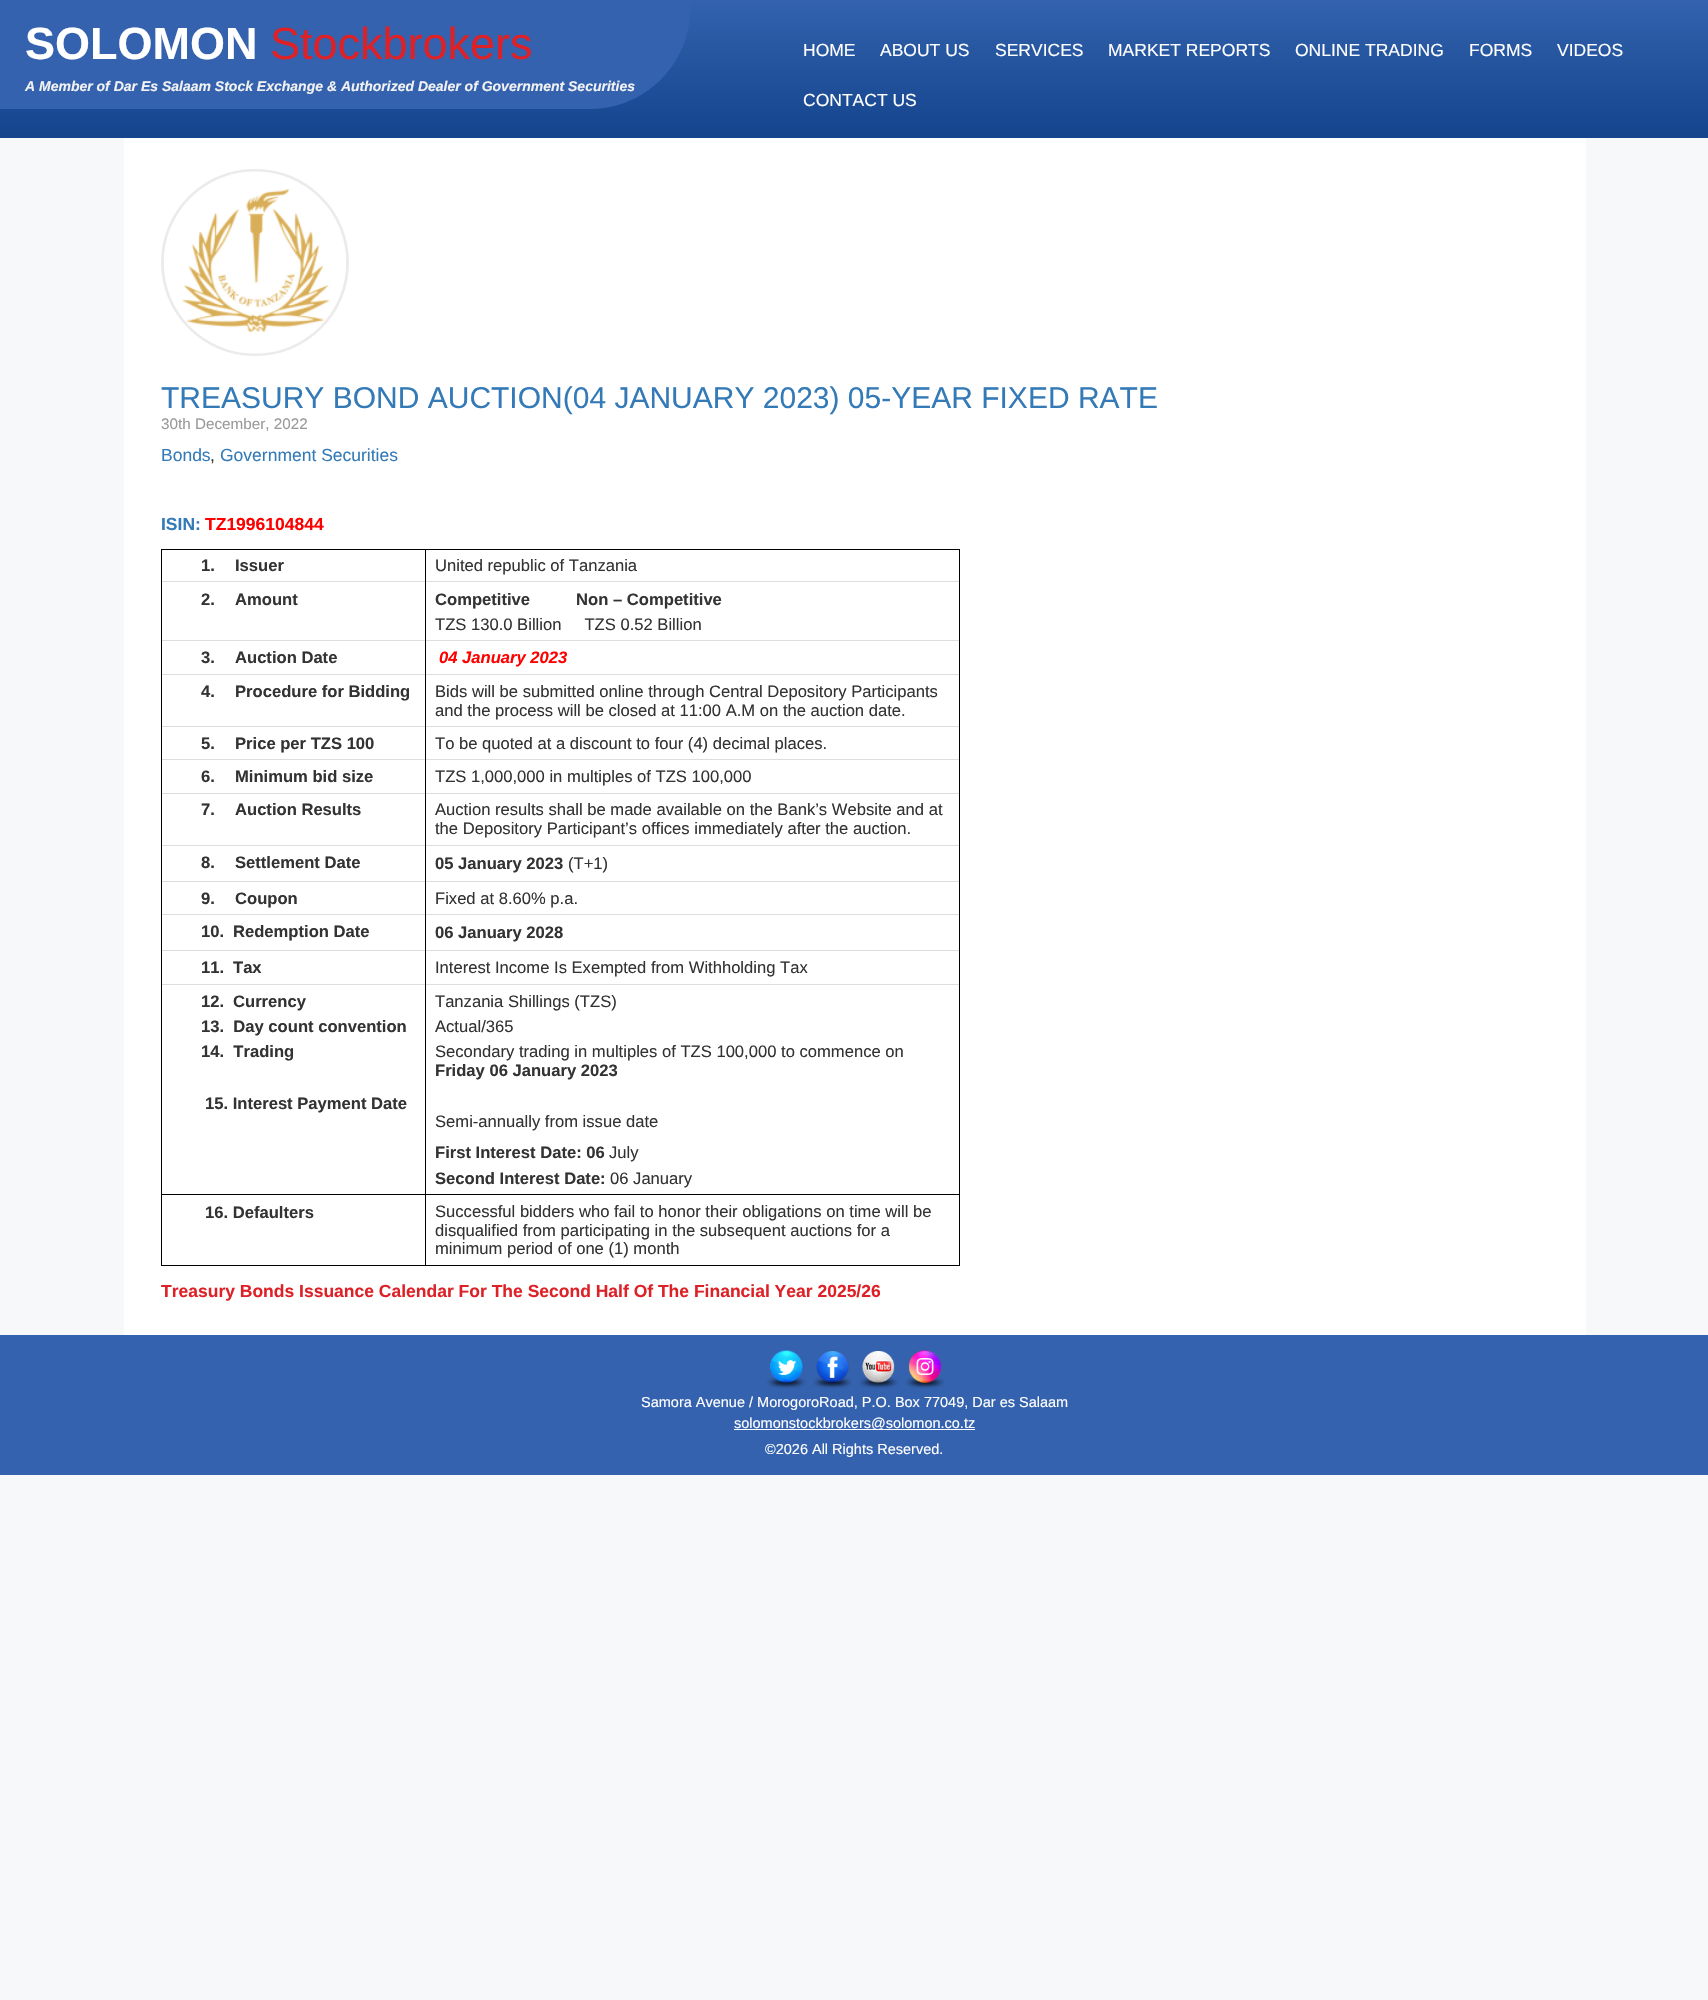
void draw(SkCanvas* canvas) {
  SkPaint paint;
  paint.setAntiAlias(true);
  auto face = [&](const char* family, int weight, float size, bool italic = false) {
    SkFontStyle style(weight, SkFontStyle::kNormal_Width,
      italic ? SkFontStyle::kItalic_Slant : SkFontStyle::kUpright_Slant);
    SkFont result(fontMgr->matchFamilyStyle(family, style), size);
    result.setSubpixel(true);
    return result;
  };
  auto paste = [&](const char* path, float x, float y, float w, float h) {
    auto image = SkImages::DeferredFromEncodedData(SkData::MakeFromFileName(path));
    canvas->drawImageRect(image, SkRect::MakeXYWH(x, y, w, h), SkSamplingOptions());
  };
  auto shape = [&](const char* data, bool evenOdd = false) {
    SkPath result = *SkParsePath::FromSVGString(data);
    if (evenOdd) result.setFillType(SkPathFillType::kEvenOdd);
    return result;
  };
  canvas->clear(0xfff7f8f9);
  {
    const SkColor colors[] = {0xff3462ae, 0xff13448c};
    const float stops[] = {0, 1};
    const SkPoint ends[] = {{854, 0}, {854, 138}};
    paint.setShader(SkGradientShader::MakeLinear(ends, colors, stops, 2, SkTileMode::kClamp));
    paint.setAlpha(255);
  }
  canvas->drawRect(SkRect::MakeXYWH(0, 0, 1708, 138), paint);
  paint.setShader(nullptr);
  paint.setColor(0xff3462ae);
  canvas->drawPath(shape("M0 0H690V9C690 64 645 109 590 109H0Z"), paint);
  paint.setColor(0xffffffff);
  canvas->drawRect(SkRect::MakeXYWH(124, 138, 1462, 1197), paint);
  paint.setColor(0xffedeaea);
  canvas->drawRoundRect(SkRect::MakeXYWH(161, 169, 188, 187), 93.5f, 93.5f, paint);
  paste("img/1.png", 164, 171, 182, 183);
  {
    const struct { float x, y, w, h; SkColor color; } items[] = {
      {161, 549, 799, 1, 0xff000000},
      {161, 581, 799, 1, 0xffdddddd},
      {161, 640, 799, 1, 0xffdddddd},
      {161, 674, 799, 1, 0xffdddddd},
      {161, 726, 799, 1, 0xffdddddd},
      {161, 759, 799, 1, 0xffdddddd},
      {161, 793, 799, 1, 0xffdddddd},
      {161, 845, 799, 1, 0xffdddddd},
      {161, 881, 799, 1, 0xffdddddd},
      {161, 914, 799, 1, 0xffdddddd},
      {161, 950, 799, 1, 0xffdddddd},
      {161, 984, 799, 1, 0xffdddddd},
      {959, 581, 1, 685, 0xff000000},
      {425, 1265, 535, 1, 0xff000000},
      {425, 1194, 1, 72, 0xff000000},
      {425, 1194, 535, 1, 0xff000000},
      {425, 581, 1, 614, 0xff000000},
      {425, 549, 1, 34, 0xff000000},
      {161, 1265, 265, 1, 0xff000000},
      {161, 1194, 1, 72, 0xff000000},
      {161, 1194, 265, 1, 0xff000000},
      {161, 581, 1, 614, 0xff000000},
      {161, 549, 1, 34, 0xff000000},
      {959, 549, 1, 34, 0xff000000},
      {0, 1335, 1708, 140, 0xff3462ae},
    };
    for (auto [x, y, w, h, color] : items) {
      paint.setColor(color);
      canvas->drawRect(SkRect::MakeXYWH(x, y, w, h), paint);
    }
  }
  paste("img/2.png", 766, 1350, 40, 39);
  paste("img/3.png", 813, 1350, 39, 39);
  paste("img/4.png", 859, 1351, 40, 38);
  paste("img/5.png", 905, 1350, 40, 39);
  paint.setColor(0xfffcfefe);
  canvas->drawRect(SkRect::MakeXYWH(734, 1429, 241, 1), paint);
  auto f0 = face("Liberation Sans", 700, 45);
  paint.setColor(0xffffffff);
  canvas->drawString("SOLOMON", 25, 59, f0, paint);
  auto f1 = face("Liberation Sans", 400, 45);
  paint.setColor(0xffdd2127);
  canvas->drawString("Stockbrokers", 270, 59, f1, paint);
  auto f2 = face("Liberation Sans", 700, 14, true);
  paint.setColor(0xfff2f2f2);
  canvas->drawString("A Member of Dar Es Salaam Stock Exchange & Authorized Dealer of Government Securities", 25, 91, f2, paint);
  auto f3 = face("Liberation Sans", 400, 17.5f);
  paint.setColor(0xffffffff);
  {
    const struct { const char* s; float x, y; } items[] = {
      {"HOME", 803, 56},
      {"ABOUT US", 880, 56},
      {"SERVICES", 995, 56},
      {"MARKET REPORTS", 1108, 56},
      {"ONLINE TRADING", 1295, 56},
      {"FORMS", 1469, 56},
      {"VIDEOS", 1557, 56},
      {"CONTACT US", 803, 106},
    };
    for (auto [s, x, y] : items) {
      canvas->drawString(s, x, y, f3, paint);
    }
  }
  auto f4 = face("Liberation Sans", 400, 30);
  paint.setColor(0xff337ab7);
  canvas->drawString("TREASURY BOND AUCTION(04 JANUARY 2023) 05-YEAR FIXED RATE", 161, 408, f4, paint);
  auto f5 = face("Liberation Sans", 400, 15.25f);
  paint.setColor(0xff999999);
  canvas->drawString("30th December, 2022", 161, 429, f5, paint);
  paint.setColor(0xff337ab7);
  canvas->drawString("Bonds", 161, 461, f3, paint);
  paint.setColor(0xff333333);
  canvas->drawString(",", 210, 461, f3, paint);
  paint.setColor(0xff337ab7);
  canvas->drawString("Government Securities", 220, 461, f3, paint);
  auto f6 = face("Liberation Sans", 700, 17.5f);
  canvas->drawString("ISIN:", 161, 530, f6, paint);
  paint.setColor(0xffff0000);
  canvas->drawString("TZ1996104844", 205, 530, f6, paint);
  auto f7 = face("Liberation Sans", 700, 16.6f);
  paint.setColor(0xff333333);
  canvas->drawString("1.", 201, 571, f7, paint);
  canvas->drawString("Issuer", 235, 571, f7, paint);
  auto f8 = face("Liberation Sans", 400, 16.6f);
  canvas->drawString("United republic of Tanzania", 435, 571, f8, paint);
  {
    const struct { const char* s; float x, y; } items[] = {
      {"2.", 201, 605},
      {"Amount", 235, 605},
      {"Competitive          Non – Competitive", 435, 605},
    };
    for (auto [s, x, y] : items) {
      canvas->drawString(s, x, y, f7, paint);
    }
  }
  canvas->drawString("TZS 130.0 Billion     TZS 0.52 Billion", 435, 630, f8, paint);
  canvas->drawString("3.", 201, 663, f7, paint);
  canvas->drawString("Auction Date", 235, 663, f7, paint);
  auto f9 = face("Liberation Sans", 700, 16.6f, true);
  paint.setColor(0xffff0000);
  canvas->drawString("04 January 2023", 439, 663, f9, paint);
  paint.setColor(0xff333333);
  canvas->drawString("4.", 201, 697, f7, paint);
  canvas->drawString("Procedure for Bidding", 235, 697, f7, paint);
  canvas->drawString("Bids will be submitted online through Central Depository Participants", 435, 697, f8, paint);
  canvas->drawString("and the process will be closed at 11:00 A.M on the auction date.", 435, 716, f8, paint);
  canvas->drawString("5.", 201, 749, f7, paint);
  canvas->drawString("Price per TZS 100", 235, 749, f7, paint);
  canvas->drawString("To be quoted at a discount to four (4) decimal places.", 435, 749, f8, paint);
  canvas->drawString("6.", 201, 782, f7, paint);
  canvas->drawString("Minimum bid size", 235, 782, f7, paint);
  canvas->drawString("TZS 1,000,000 in multiples of TZS 100,000", 435, 782, f8, paint);
  canvas->drawString("7.", 201, 815, f7, paint);
  canvas->drawString("Auction Results", 235, 815, f7, paint);
  canvas->drawString("Auction results shall be made available on the Bank’s Website and at", 435, 815, f8, paint);
  canvas->drawString("the Depository Participant’s offices immediately after the auction.", 435, 834, f8, paint);
  {
    const struct { const char* s; float x, y; } items[] = {
      {"8.", 201, 868},
      {"Settlement Date", 235, 868},
      {"05 January 2023", 435, 869},
    };
    for (auto [s, x, y] : items) {
      canvas->drawString(s, x, y, f7, paint);
    }
  }
  canvas->drawString("(T+1)", 568, 869, f8, paint);
  canvas->drawString("9.", 201, 904, f7, paint);
  canvas->drawString("Coupon", 235, 904, f7, paint);
  canvas->drawString("Fixed at 8.60% p.a.", 435, 904, f8, paint);
  {
    const struct { const char* s; float x, y; } items[] = {
      {"10.", 201, 937},
      {"Redemption Date", 233, 937},
      {"06 January 2028", 435, 938},
      {"11.", 201, 973},
      {"Tax", 233, 973},
    };
    for (auto [s, x, y] : items) {
      canvas->drawString(s, x, y, f7, paint);
    }
  }
  canvas->drawString("Interest Income Is Exempted from Withholding Tax", 435, 973, f8, paint);
  {
    const struct { const char* s; float x, y; } items[] = {
      {"12.", 201, 1007},
      {"Currency", 233, 1007},
      {"13.  Day count convention", 201, 1032},
      {"14.  Trading", 201, 1057},
      {"15. Interest Payment Date", 205, 1109},
    };
    for (auto [s, x, y] : items) {
      canvas->drawString(s, x, y, f7, paint);
    }
  }
  {
    const struct { const char* s; float x, y; } items[] = {
      {"Tanzania Shillings (TZS)", 435, 1007},
      {"Actual/365", 435, 1032},
      {"Secondary trading in multiples of TZS 100,000 to commence on", 435, 1057},
    };
    for (auto [s, x, y] : items) {
      canvas->drawString(s, x, y, f8, paint);
    }
  }
  canvas->drawString("Friday 06 January 2023", 435, 1076, f7, paint);
  canvas->drawString("Semi-annually from issue date", 435, 1127, f8, paint);
  canvas->drawString("First Interest Date: 06", 435, 1158, f7, paint);
  canvas->drawString("July", 609, 1158, f8, paint);
  canvas->drawString("Second Interest Date:", 435, 1184, f7, paint);
  canvas->drawString("06 January", 610, 1184, f8, paint);
  canvas->drawString("16. Defaulters", 205, 1218, f7, paint);
  {
    const struct { const char* s; float x, y; } items[] = {
      {"Successful bidders who fail to honor their obligations on time will be", 435, 1217},
      {"disqualified from participating in the subsequent auctions for a", 435, 1236},
      {"minimum period of one (1) month", 435, 1254},
    };
    for (auto [s, x, y] : items) {
      canvas->drawString(s, x, y, f8, paint);
    }
  }
  paint.setColor(0xffdd2127);
  canvas->drawString("Treasury Bonds Issuance Calendar For The Second Half Of The Financial Year 2025/26", 161, 1297, f6, paint);
  auto f10 = face("Liberation Sans", 400, 14.5f);
  paint.setColor(0xffffffff);
  {
    const struct { const char* s; float x, y; } items[] = {
      {"Samora Avenue / MorogoroRoad, P.O. Box 77049, Dar es Salaam", 641, 1407},
      {"solomonstockbrokers@solomon.co.tz", 734, 1428},
      {"©2026 All Rights Reserved.", 765, 1454},
    };
    for (auto [s, x, y] : items) {
      canvas->drawString(s, x, y, f10, paint);
    }
  }
}
